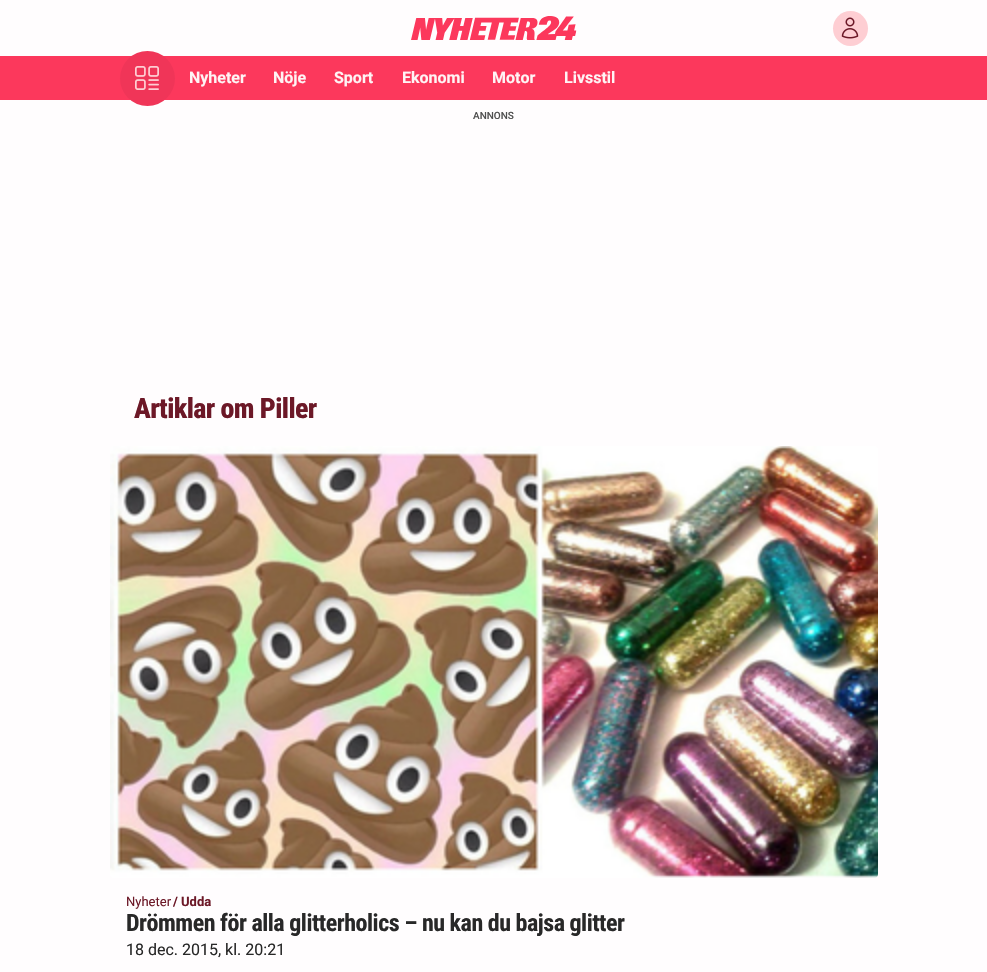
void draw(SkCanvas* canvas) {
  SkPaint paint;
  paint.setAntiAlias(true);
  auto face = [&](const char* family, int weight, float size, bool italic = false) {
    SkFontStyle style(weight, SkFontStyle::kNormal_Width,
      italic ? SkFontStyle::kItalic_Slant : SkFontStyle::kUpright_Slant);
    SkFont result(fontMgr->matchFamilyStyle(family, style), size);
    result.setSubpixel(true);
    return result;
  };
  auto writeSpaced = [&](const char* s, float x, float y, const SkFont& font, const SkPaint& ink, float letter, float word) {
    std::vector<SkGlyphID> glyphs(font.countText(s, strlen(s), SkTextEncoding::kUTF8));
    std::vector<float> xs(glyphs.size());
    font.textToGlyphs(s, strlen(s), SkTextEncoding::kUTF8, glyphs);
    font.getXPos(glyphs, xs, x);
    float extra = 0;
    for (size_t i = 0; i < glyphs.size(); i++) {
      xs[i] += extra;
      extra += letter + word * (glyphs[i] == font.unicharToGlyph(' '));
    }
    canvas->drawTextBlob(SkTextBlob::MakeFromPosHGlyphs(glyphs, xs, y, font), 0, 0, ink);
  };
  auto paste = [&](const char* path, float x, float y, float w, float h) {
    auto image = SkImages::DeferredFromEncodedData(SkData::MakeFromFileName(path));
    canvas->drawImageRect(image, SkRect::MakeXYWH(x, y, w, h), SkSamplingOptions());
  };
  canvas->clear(0xfffffdfe);
  paste("img/1.png", 411, 16, 166, 24);
  paint.setColor(0xfffeced3);
  canvas->drawCircle(850.5f, 28.5f, 17.5f, paint);
  paste("img/2.png", 841, 17, 18, 22);
  paint.setColor(0xfffc385c);
  canvas->drawRect(SkRect::MakeXYWH(0, 56, 987, 44), paint);
  paint.setColor(0xfff03558);
  canvas->drawCircle(147.5f, 78.5f, 27.5f, paint);
  paste("img/3.png", 135, 66, 24, 24);
  paste("img/4.png", 110, 446, 768, 432);
  auto f0 = face("Roboto", 700, 16);
  paint.setColor(0xfffff4f5);
  {
    const struct { const char* s; float x, y; } items[] = {
      {"Nyheter", 189, 83},
      {"Nöje", 273, 83},
      {"Sport", 334, 83},
      {"Ekonomi", 402, 83},
      {"Motor", 492, 83},
      {"Livsstil", 564, 83},
    };
    for (auto [s, x, y] : items) {
      canvas->drawString(s, x, y, f0, paint);
    }
  }
  auto f1 = face("Roboto", 500, 10);
  paint.setColor(0xff505050);
  canvas->drawString("ANNONS", 473, 119, f1, paint);
  auto f2 = face("Roboto Condensed", 800, 28);
  paint.setColor(0xff6c1827);
  writeSpaced("Artiklar om Piller", 134, 418, f2, paint, -0.6f, 0);
  auto f3 = face("Roboto", 400, 13);
  canvas->drawString("Nyheter", 126, 906, f3, paint);
  auto f4 = face("Roboto", 700, 13);
  canvas->drawString("/ Udda", 173, 906, f4, paint);
  auto f5 = face("Roboto Condensed", 700, 24);
  paint.setColor(0xff282828);
  writeSpaced("Drömmen för alla glitterholics – nu kan du bajsa glitter", 126, 931, f5, paint, -0.48f, 0);
  auto f6 = face("Roboto", 400, 16);
  canvas->drawString("18 dec. 2015, kl. 20:21", 126, 955, f6, paint);
}
